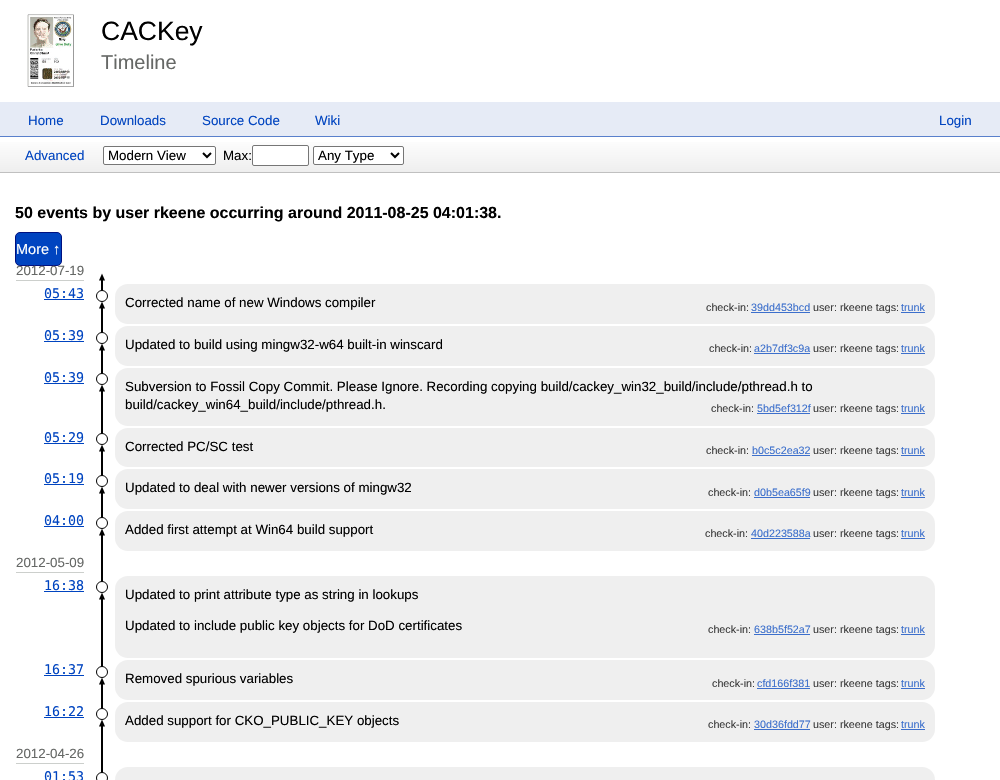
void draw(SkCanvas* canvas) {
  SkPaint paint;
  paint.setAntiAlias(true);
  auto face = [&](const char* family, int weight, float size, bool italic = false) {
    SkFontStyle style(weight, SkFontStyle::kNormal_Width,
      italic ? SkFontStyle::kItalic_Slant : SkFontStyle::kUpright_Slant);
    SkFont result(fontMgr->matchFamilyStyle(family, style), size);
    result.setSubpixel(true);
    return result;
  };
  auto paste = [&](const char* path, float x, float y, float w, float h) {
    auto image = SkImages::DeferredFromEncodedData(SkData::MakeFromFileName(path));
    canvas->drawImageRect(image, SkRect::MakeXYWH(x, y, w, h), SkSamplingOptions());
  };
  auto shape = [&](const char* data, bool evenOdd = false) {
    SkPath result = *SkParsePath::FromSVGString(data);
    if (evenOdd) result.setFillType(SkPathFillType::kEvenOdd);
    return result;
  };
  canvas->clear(0xffffffff);
  paste("img/1.png", 27, 14, 47, 73);
  paint.setColor(0xffe6ebf6);
  canvas->drawRect(SkRect::MakeXYWH(0, 102, 1000, 34), paint);
  paint.setColor(0xff5980cc);
  canvas->drawRect(SkRect::MakeXYWH(0, 136, 1000, 1), paint);
  {
    const SkColor colors[] = {0xffeeeeee, 0xffffffff};
    const float stops[] = {0, 1};
    const SkPoint ends[] = {{0, 172}, {0, 137}};
    paint.setShader(SkGradientShader::MakeLinear(ends, colors, stops, 2, SkTileMode::kClamp));
    paint.setAlpha(255);
  }
  canvas->drawRect(SkRect::MakeXYWH(0, 142, 1000, 30), paint);
  paint.setShader(nullptr);
  paint.setColor(0xffc0c0c0);
  canvas->drawRect(SkRect::MakeXYWH(0, 172, 1000, 1), paint);
  paint.setColor(0xffffffff);
  canvas->drawRoundRect(SkRect::MakeXYWH(103.5f, 146.5f, 112, 18), 1.5f, 1.5f, paint);
  paint.setStroke(true);
  paint.setStrokeWidth(1);
  paint.setColor(0xff767676);
  canvas->drawRoundRect(SkRect::MakeXYWH(103.5f, 146.5f, 112, 18), 1.5f, 1.5f, paint);
  paint.setStrokeWidth(2);
  paint.setColor(0xff000000);
  canvas->drawPath(shape("M203 153L207 157L211 153"), paint);
  paint.setStroke(false);
  paint.setColor(0xffffffff);
  canvas->drawRoundRect(SkRect::MakeXYWH(252.5f, 145.5f, 56, 20), 1.5f, 1.5f, paint);
  paint.setStroke(true);
  paint.setStrokeWidth(1);
  paint.setColor(0xff767676);
  canvas->drawRoundRect(SkRect::MakeXYWH(252.5f, 145.5f, 56, 20), 1.5f, 1.5f, paint);
  paint.setStroke(false);
  paint.setColor(0xffffffff);
  canvas->drawRoundRect(SkRect::MakeXYWH(313.5f, 146.5f, 90, 18), 1.5f, 1.5f, paint);
  paint.setStroke(true);
  paint.setColor(0xff767676);
  canvas->drawRoundRect(SkRect::MakeXYWH(313.5f, 146.5f, 90, 18), 1.5f, 1.5f, paint);
  paint.setStrokeWidth(2);
  paint.setColor(0xff000000);
  canvas->drawPath(shape("M391 153L395 157L399 153"), paint);
  paint.setStroke(false);
  paint.setColor(0xff0044c0);
  canvas->drawRoundRect(SkRect::MakeXYWH(15.5f, 232.5f, 46, 33), 4.5f, 4.5f, paint);
  paint.setStroke(true);
  paint.setStrokeWidth(1);
  paint.setColor(0xff001180);
  canvas->drawRoundRect(SkRect::MakeXYWH(15.5f, 232.5f, 46, 33), 4.5f, 4.5f, paint);
  paint.setStroke(false);
  paint.setColor(0xffcccfcc);
  canvas->drawRect(SkRect::MakeXYWH(16, 280, 68, 1), paint);
  paint.setColor(0xff000000);
  canvas->drawRect(SkRect::MakeXYWH(101, 278, 2, 18), paint);
  canvas->drawPath(shape("M105 280.5H99L102 273.5Z"), paint);
  canvas->drawRect(SkRect::MakeXYWH(101, 306, 2, 32), paint);
  canvas->drawPath(shape("M105 308.5H99L102 301.5Z"), paint);
  paint.setColor(0xffffffff);
  canvas->drawCircle(102, 296, 5.5f, paint);
  paint.setStroke(true);
  paint.setColor(0xff000000);
  canvas->drawCircle(102, 296, 5.5f, paint);
  paint.setStroke(false);
  canvas->drawRect(SkRect::MakeXYWH(101, 348, 2, 31), paint);
  canvas->drawPath(shape("M105 350.5H99L102 343.5Z"), paint);
  paint.setColor(0xffffffff);
  canvas->drawCircle(102, 338, 5.5f, paint);
  paint.setStroke(true);
  paint.setColor(0xff000000);
  canvas->drawCircle(102, 338, 5.5f, paint);
  paint.setStroke(false);
  canvas->drawRect(SkRect::MakeXYWH(101, 389, 2, 50), paint);
  canvas->drawPath(shape("M105 391.5H99L102 384.5Z"), paint);
  paint.setColor(0xffffffff);
  canvas->drawCircle(102, 379, 5.5f, paint);
  paint.setStroke(true);
  paint.setColor(0xff000000);
  canvas->drawCircle(102, 379, 5.5f, paint);
  paint.setStroke(false);
  canvas->drawRect(SkRect::MakeXYWH(101, 449, 2, 32), paint);
  canvas->drawPath(shape("M105 451.5H99L102 444.5Z"), paint);
  paint.setColor(0xffffffff);
  canvas->drawCircle(102, 439, 5.5f, paint);
  paint.setStroke(true);
  paint.setColor(0xff000000);
  canvas->drawCircle(102, 439, 5.5f, paint);
  paint.setStroke(false);
  canvas->drawRect(SkRect::MakeXYWH(101, 491, 2, 32), paint);
  canvas->drawPath(shape("M105 493.5H99L102 486.5Z"), paint);
  paint.setColor(0xffffffff);
  canvas->drawCircle(102, 481, 5.5f, paint);
  paint.setStroke(true);
  paint.setColor(0xff000000);
  canvas->drawCircle(102, 481, 5.5f, paint);
  paint.setStroke(false);
  canvas->drawRect(SkRect::MakeXYWH(101, 533, 2, 54), paint);
  canvas->drawPath(shape("M105 535.5H99L102 528.5Z"), paint);
  paint.setColor(0xffffffff);
  canvas->drawCircle(102, 523, 5.5f, paint);
  paint.setStroke(true);
  paint.setColor(0xff000000);
  canvas->drawCircle(102, 523, 5.5f, paint);
  paint.setStroke(false);
  canvas->drawRect(SkRect::MakeXYWH(101, 597, 2, 75), paint);
  canvas->drawPath(shape("M105 599.5H99L102 592.5Z"), paint);
  paint.setColor(0xffffffff);
  canvas->drawCircle(102, 587, 5.5f, paint);
  paint.setStroke(true);
  paint.setColor(0xff000000);
  canvas->drawCircle(102, 587, 5.5f, paint);
  paint.setStroke(false);
  canvas->drawRect(SkRect::MakeXYWH(101, 682, 2, 32), paint);
  canvas->drawPath(shape("M105 684.5H99L102 677.5Z"), paint);
  paint.setColor(0xffffffff);
  canvas->drawCircle(102, 672, 5.5f, paint);
  paint.setStroke(true);
  paint.setColor(0xff000000);
  canvas->drawCircle(102, 672, 5.5f, paint);
  paint.setStroke(false);
  canvas->drawRect(SkRect::MakeXYWH(101, 724, 2, 54), paint);
  canvas->drawPath(shape("M105 726.5H99L102 719.5Z"), paint);
  paint.setColor(0xffffffff);
  canvas->drawCircle(102, 714, 5.5f, paint);
  paint.setStroke(true);
  paint.setColor(0xff000000);
  canvas->drawCircle(102, 714, 5.5f, paint);
  paint.setStroke(false);
  paint.setColor(0xffffffff);
  canvas->drawCircle(102, 778, 5.5f, paint);
  paint.setStroke(true);
  paint.setColor(0xff000000);
  canvas->drawCircle(102, 778, 5.5f, paint);
  paint.setStroke(false);
  paint.setColor(0xff0044c0);
  canvas->drawRect(SkRect::MakeXYWH(44, 299, 40, 1), paint);
  paint.setColor(0xffefefef);
  canvas->drawRoundRect(SkRect::MakeXYWH(115, 284, 820, 40), 13, 13, paint);
  {
    const struct { float x, y, w, h; SkColor color; } items[] = {
      {751, 312, 59, 1, 0xff3c6fcc},
      {901, 312, 24, 1, 0xff3c6fcc},
      {44, 341, 40, 1, 0xff0044c0},
    };
    for (auto [x, y, w, h, color] : items) {
      paint.setColor(color);
      canvas->drawRect(SkRect::MakeXYWH(x, y, w, h), paint);
    }
  }
  paint.setColor(0xffefefef);
  canvas->drawRoundRect(SkRect::MakeXYWH(115, 326, 820, 40), 13, 13, paint);
  {
    const struct { float x, y, w, h; SkColor color; } items[] = {
      {754, 353, 56, 1, 0xff3c6fcc},
      {901, 353, 24, 1, 0xff3c6fcc},
      {44, 383, 40, 1, 0xff0044c0},
    };
    for (auto [x, y, w, h, color] : items) {
      paint.setColor(color);
      canvas->drawRect(SkRect::MakeXYWH(x, y, w, h), paint);
    }
  }
  paint.setColor(0xffefefef);
  canvas->drawRoundRect(SkRect::MakeXYWH(115, 368, 820, 58), 13, 13, paint);
  {
    const struct { float x, y, w, h; SkColor color; } items[] = {
      {757, 413, 53, 1, 0xff3c6fcc},
      {901, 413, 24, 1, 0xff3c6fcc},
      {44, 443, 40, 1, 0xff0044c0},
    };
    for (auto [x, y, w, h, color] : items) {
      paint.setColor(color);
      canvas->drawRect(SkRect::MakeXYWH(x, y, w, h), paint);
    }
  }
  paint.setColor(0xffefefef);
  canvas->drawRoundRect(SkRect::MakeXYWH(115, 428, 820, 39), 13, 13, paint);
  {
    const struct { float x, y, w, h; SkColor color; } items[] = {
      {752, 455, 58, 1, 0xff3c6fcc},
      {901, 455, 24, 1, 0xff3c6fcc},
      {44, 484, 40, 1, 0xff0044c0},
    };
    for (auto [x, y, w, h, color] : items) {
      paint.setColor(color);
      canvas->drawRect(SkRect::MakeXYWH(x, y, w, h), paint);
    }
  }
  paint.setColor(0xffefefef);
  canvas->drawRoundRect(SkRect::MakeXYWH(115, 469, 820, 40), 13, 13, paint);
  {
    const struct { float x, y, w, h; SkColor color; } items[] = {
      {754, 497, 56, 1, 0xff3c6fcc},
      {901, 497, 24, 1, 0xff3c6fcc},
      {44, 526, 40, 1, 0xff0044c0},
    };
    for (auto [x, y, w, h, color] : items) {
      paint.setColor(color);
      canvas->drawRect(SkRect::MakeXYWH(x, y, w, h), paint);
    }
  }
  paint.setColor(0xffefefef);
  canvas->drawRoundRect(SkRect::MakeXYWH(115, 511, 820, 40), 13, 13, paint);
  {
    const struct { float x, y, w, h; SkColor color; } items[] = {
      {751, 538, 59, 1, 0xff3c6fcc},
      {901, 538, 24, 1, 0xff3c6fcc},
      {16, 572, 68, 1, 0xffcccfcc},
      {44, 591, 40, 1, 0xff0044c0},
    };
    for (auto [x, y, w, h, color] : items) {
      paint.setColor(color);
      canvas->drawRect(SkRect::MakeXYWH(x, y, w, h), paint);
    }
  }
  paint.setColor(0xffefefef);
  canvas->drawRoundRect(SkRect::MakeXYWH(115, 576, 820, 82), 13, 13, paint);
  {
    const struct { float x, y, w, h; SkColor color; } items[] = {
      {754, 634, 56, 1, 0xff3c6fcc},
      {901, 634, 24, 1, 0xff3c6fcc},
      {44, 675, 40, 1, 0xff0044c0},
    };
    for (auto [x, y, w, h, color] : items) {
      paint.setColor(color);
      canvas->drawRect(SkRect::MakeXYWH(x, y, w, h), paint);
    }
  }
  paint.setColor(0xffefefef);
  canvas->drawRoundRect(SkRect::MakeXYWH(115, 660, 820, 40), 13, 13, paint);
  {
    const struct { float x, y, w, h; SkColor color; } items[] = {
      {757, 688, 53, 1, 0xff3c6fcc},
      {901, 688, 24, 1, 0xff3c6fcc},
      {44, 717, 40, 1, 0xff0044c0},
    };
    for (auto [x, y, w, h, color] : items) {
      paint.setColor(color);
      canvas->drawRect(SkRect::MakeXYWH(x, y, w, h), paint);
    }
  }
  paint.setColor(0xffefefef);
  canvas->drawRoundRect(SkRect::MakeXYWH(115, 702, 820, 40), 13, 13, paint);
  {
    const struct { float x, y, w, h; SkColor color; } items[] = {
      {754, 729, 56, 1, 0xff3c6fcc},
      {901, 729, 24, 1, 0xff3c6fcc},
      {16, 763, 68, 1, 0xffcccfcc},
    };
    for (auto [x, y, w, h, color] : items) {
      paint.setColor(color);
      canvas->drawRect(SkRect::MakeXYWH(x, y, w, h), paint);
    }
  }
  paint.setColor(0xffefefef);
  canvas->drawRoundRect(SkRect::MakeXYWH(115, 767, 820, 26), 13, 13, paint);
  auto f0 = face("Liberation Sans", 400, 26.5f);
  paint.setColor(0xff000000);
  canvas->drawString("CACKey", 101, 40, f0, paint);
  auto f1 = face("Liberation Sans", 400, 20);
  paint.setColor(0xff666866);
  canvas->drawString("Timeline", 101, 69, f1, paint);
  auto f2 = face("Liberation Sans", 400, 13.33f);
  paint.setColor(0xff0044c0);
  {
    const struct { const char* s; float x, y; } items[] = {
      {"Home", 28, 125},
      {"Downloads", 100, 125},
      {"Source Code", 202, 125},
      {"Wiki", 315, 125},
      {"Login", 939, 125},
      {"Advanced", 25, 160},
    };
    for (auto [s, x, y] : items) {
      canvas->drawString(s, x, y, f2, paint);
    }
  }
  paint.setColor(0xff000000);
  {
    const struct { const char* s; float x, y; } items[] = {
      {"Modern View", 108, 160},
      {"Max:", 223, 160},
      {"Any Type", 318, 160},
    };
    for (auto [s, x, y] : items) {
      canvas->drawString(s, x, y, f2, paint);
    }
  }
  auto f3 = face("Liberation Sans", 700, 16);
  canvas->drawString("50 events by user rkeene occurring around 2011-08-25 04:01:38.", 15, 218, f3, paint);
  auto f4 = face("Liberation Sans", 400, 14.5f);
  paint.setColor(0xffffffff);
  canvas->drawString("More ↑", 16, 254, f4, paint);
  paint.setColor(0xff666866);
  canvas->drawString("2012-07-19", 16, 275, f2, paint);
  auto f5 = face("DejaVu Sans Mono", 400, 13.33f);
  paint.setColor(0xff0044c0);
  canvas->drawString("05:43", 44, 298, f5, paint);
  paint.setColor(0xff000000);
  canvas->drawString("Corrected name of new Windows compiler", 125, 307, f2, paint);
  auto f6 = face("Liberation Sans", 400, 10.75f);
  paint.setColor(0xff3c3c3c);
  canvas->drawString("check-in:", 706, 311, f6, paint);
  paint.setColor(0xff3c6fcc);
  canvas->drawString("39dd453bcd", 751, 311, f6, paint);
  paint.setColor(0xff3c3c3c);
  canvas->drawString("user: rkeene tags:", 813, 311, f6, paint);
  paint.setColor(0xff3c6fcc);
  canvas->drawString("trunk", 901, 311, f6, paint);
  paint.setColor(0xff0044c0);
  canvas->drawString("05:39", 44, 340, f5, paint);
  paint.setColor(0xff000000);
  canvas->drawString("Updated to build using mingw32-w64 built-in winscard", 125, 349, f2, paint);
  paint.setColor(0xff3c3c3c);
  canvas->drawString("check-in:", 709, 352, f6, paint);
  paint.setColor(0xff3c6fcc);
  canvas->drawString("a2b7df3c9a", 754, 352, f6, paint);
  paint.setColor(0xff3c3c3c);
  canvas->drawString("user: rkeene tags:", 813, 352, f6, paint);
  paint.setColor(0xff3c6fcc);
  canvas->drawString("trunk", 901, 352, f6, paint);
  paint.setColor(0xff0044c0);
  canvas->drawString("05:39", 44, 382, f5, paint);
  paint.setColor(0xff000000);
  canvas->drawString("Subversion to Fossil Copy Commit. Please Ignore. Recording copying build/cackey_win32_build/include/pthread.h to", 125, 391, f2, paint);
  canvas->drawString("build/cackey_win64_build/include/pthread.h.", 125, 409, f2, paint);
  paint.setColor(0xff3c3c3c);
  canvas->drawString("check-in:", 711, 412, f6, paint);
  paint.setColor(0xff3c6fcc);
  canvas->drawString("5bd5ef312f", 757, 412, f6, paint);
  paint.setColor(0xff3c3c3c);
  canvas->drawString("user: rkeene tags:", 813, 412, f6, paint);
  paint.setColor(0xff3c6fcc);
  canvas->drawString("trunk", 901, 412, f6, paint);
  paint.setColor(0xff0044c0);
  canvas->drawString("05:29", 44, 442, f5, paint);
  paint.setColor(0xff000000);
  canvas->drawString("Corrected PC/SC test", 125, 451, f2, paint);
  paint.setColor(0xff3c3c3c);
  canvas->drawString("check-in:", 706, 454, f6, paint);
  paint.setColor(0xff3c6fcc);
  canvas->drawString("b0c5c2ea32", 752, 454, f6, paint);
  paint.setColor(0xff3c3c3c);
  canvas->drawString("user: rkeene tags:", 813, 454, f6, paint);
  paint.setColor(0xff3c6fcc);
  canvas->drawString("trunk", 901, 454, f6, paint);
  paint.setColor(0xff0044c0);
  canvas->drawString("05:19", 44, 483, f5, paint);
  paint.setColor(0xff000000);
  canvas->drawString("Updated to deal with newer versions of mingw32", 125, 492, f2, paint);
  paint.setColor(0xff3c3c3c);
  canvas->drawString("check-in:", 708, 496, f6, paint);
  paint.setColor(0xff3c6fcc);
  canvas->drawString("d0b5ea65f9", 754, 496, f6, paint);
  paint.setColor(0xff3c3c3c);
  canvas->drawString("user: rkeene tags:", 813, 496, f6, paint);
  paint.setColor(0xff3c6fcc);
  canvas->drawString("trunk", 901, 496, f6, paint);
  paint.setColor(0xff0044c0);
  canvas->drawString("04:00", 44, 525, f5, paint);
  paint.setColor(0xff000000);
  canvas->drawString("Added first attempt at Win64 build support", 125, 534, f2, paint);
  paint.setColor(0xff3c3c3c);
  canvas->drawString("check-in:", 705, 537, f6, paint);
  paint.setColor(0xff3c6fcc);
  canvas->drawString("40d223588a", 751, 537, f6, paint);
  paint.setColor(0xff3c3c3c);
  canvas->drawString("user: rkeene tags:", 813, 537, f6, paint);
  paint.setColor(0xff3c6fcc);
  canvas->drawString("trunk", 901, 537, f6, paint);
  paint.setColor(0xff666866);
  canvas->drawString("2012-05-09", 16, 567, f2, paint);
  paint.setColor(0xff0044c0);
  canvas->drawString("16:38", 44, 590, f5, paint);
  paint.setColor(0xff000000);
  canvas->drawString("Updated to print attribute type as string in lookups", 125, 599, f2, paint);
  canvas->drawString("Updated to include public key objects for DoD certificates", 125, 630, f2, paint);
  paint.setColor(0xff3c3c3c);
  canvas->drawString("check-in:", 708, 633, f6, paint);
  paint.setColor(0xff3c6fcc);
  canvas->drawString("638b5f52a7", 754, 633, f6, paint);
  paint.setColor(0xff3c3c3c);
  canvas->drawString("user: rkeene tags:", 813, 633, f6, paint);
  paint.setColor(0xff3c6fcc);
  canvas->drawString("trunk", 901, 633, f6, paint);
  paint.setColor(0xff0044c0);
  canvas->drawString("16:37", 44, 674, f5, paint);
  paint.setColor(0xff000000);
  canvas->drawString("Removed spurious variables", 125, 683, f2, paint);
  paint.setColor(0xff3c3c3c);
  canvas->drawString("check-in:", 712, 687, f6, paint);
  paint.setColor(0xff3c6fcc);
  canvas->drawString("cfd166f381", 757, 687, f6, paint);
  paint.setColor(0xff3c3c3c);
  canvas->drawString("user: rkeene tags:", 813, 687, f6, paint);
  paint.setColor(0xff3c6fcc);
  canvas->drawString("trunk", 901, 687, f6, paint);
  paint.setColor(0xff0044c0);
  canvas->drawString("16:22", 44, 716, f5, paint);
  paint.setColor(0xff000000);
  canvas->drawString("Added support for CKO_PUBLIC_KEY objects", 125, 725, f2, paint);
  paint.setColor(0xff3c3c3c);
  canvas->drawString("check-in:", 708, 728, f6, paint);
  paint.setColor(0xff3c6fcc);
  canvas->drawString("30d36fdd77", 754, 728, f6, paint);
  paint.setColor(0xff3c3c3c);
  canvas->drawString("user: rkeene tags:", 813, 728, f6, paint);
  paint.setColor(0xff3c6fcc);
  canvas->drawString("trunk", 901, 728, f6, paint);
  paint.setColor(0xff666866);
  canvas->drawString("2012-04-26", 16, 758, f2, paint);
  paint.setColor(0xff0044c0);
  canvas->drawString("01:53", 44, 781, f5, paint);
}
